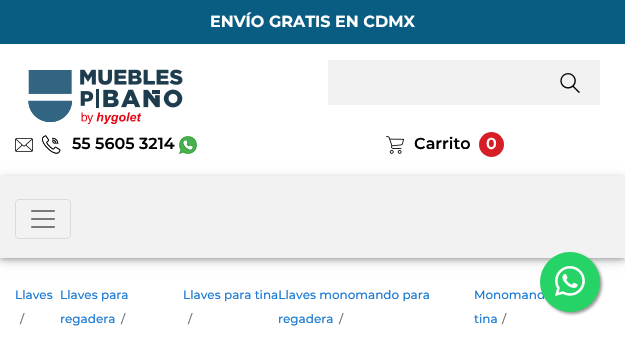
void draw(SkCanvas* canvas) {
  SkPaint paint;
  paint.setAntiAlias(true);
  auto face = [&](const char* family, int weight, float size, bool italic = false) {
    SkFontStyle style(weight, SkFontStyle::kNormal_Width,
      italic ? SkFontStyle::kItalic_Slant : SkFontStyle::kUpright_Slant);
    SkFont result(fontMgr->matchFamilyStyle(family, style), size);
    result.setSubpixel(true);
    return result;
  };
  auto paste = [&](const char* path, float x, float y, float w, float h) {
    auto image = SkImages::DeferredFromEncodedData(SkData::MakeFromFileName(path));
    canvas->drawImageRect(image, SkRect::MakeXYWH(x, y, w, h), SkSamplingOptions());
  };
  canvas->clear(0xffffffff);
  paint.setColor(0xff095d82);
  canvas->drawRect(SkRect::MakeXYWH(0, 0, 625, 44), paint);
  paste("img/1.png", 28, 69, 155, 56);
  paint.setColor(0xfff2f2f2);
  canvas->drawRect(SkRect::MakeXYWH(328.5f, 60.5f, 211, 44), paint);
  paint.setStroke(true);
  paint.setStrokeWidth(1);
  canvas->drawRect(SkRect::MakeXYWH(328.5f, 60.5f, 211, 44), paint);
  paint.setStroke(false);
  canvas->drawRect(SkRect::MakeXYWH(540, 60, 60, 45), paint);
  paste("img/2.png", 560, 73, 20, 20);
  paste("img/3.png", 15, 138, 18, 14);
  paste("img/4.png", 42, 135, 19, 19);
  paste("img/5.png", 179, 136, 18, 18);
  paste("img/6.png", 386, 136, 18, 18);
  paint.setColor(0xffd61e26);
  canvas->drawCircle(491.5f, 144.5f, 12.5f, paint);
  paint.setColor(0x30000000);
  paint.setMaskFilter(SkMaskFilter::MakeBlur(kNormal_SkBlurStyle, 5));
  canvas->drawRect(SkRect::MakeXYWH(0, 179, 625, 82), paint);
  paint.setMaskFilter(nullptr);
  paint.setColor(0x33000000);
  paint.setMaskFilter(SkMaskFilter::MakeBlur(kNormal_SkBlurStyle, 2));
  canvas->drawRect(SkRect::MakeXYWH(0, 178, 625, 82), paint);
  paint.setMaskFilter(nullptr);
  paint.setColor(0xfff2f2f2);
  canvas->drawRect(SkRect::MakeXYWH(0, 176, 625, 82), paint);
  paint.setStroke(true);
  paint.setColor(0xffdadada);
  canvas->drawRoundRect(SkRect::MakeXYWH(15.5f, 199.5f, 55, 39), 3.5f, 3.5f, paint);
  paste("img/7.png", 31, 210, 24, 18);
  paint.setStroke(false);
  paint.setColor(0xff999999);
  paint.setMaskFilter(SkMaskFilter::MakeBlur(kNormal_SkBlurStyle, 1.5f));
  canvas->drawRoundRect(SkRect::MakeXYWH(542, 254, 60, 60), 30, 30, paint);
  paint.setMaskFilter(nullptr);
  auto f0 = face("Montserrat", 700, 16);
  paint.setColor(0xffffffff);
  canvas->drawString("ENVÍO GRATIS EN CDMX", 210, 27, f0, paint);
  auto f1 = face("Montserrat", 600, 16);
  paint.setColor(0xff000000);
  canvas->drawString("55 5605 3214", 72, 149, f1, paint);
  canvas->drawString("Carrito", 414, 149, f1, paint);
  paint.setColor(0xffffffff);
  canvas->drawString("0", 486, 149, f1, paint);
  auto f2 = face("Montserrat", 500, 12);
  paint.setColor(0xff1c7cd5);
  canvas->drawString("Llaves", 15, 299, f2, paint);
  paint.setColor(0xff777777);
  canvas->drawString("/", 20, 323, f2, paint);
  paint.setColor(0xff1c7cd5);
  canvas->drawString("Llaves para", 60, 299, f2, paint);
  canvas->drawString("regadera", 60, 323, f2, paint);
  paint.setColor(0xff777777);
  canvas->drawString("/", 121, 323, f2, paint);
  paint.setColor(0xff1c7cd5);
  canvas->drawString("Llaves para tinaLlaves monomando para", 183, 299, f2, paint);
  paint.setColor(0xff777777);
  canvas->drawString("/", 188, 323, f2, paint);
  paint.setColor(0xff1c7cd5);
  canvas->drawString("Monomand", 474, 299, f2, paint);
  canvas->drawString("tina", 474, 323, f2, paint);
  paint.setColor(0xff777777);
  canvas->drawString("/", 502, 323, f2, paint);
  paint.setColor(0xff1c7cd5);
  canvas->drawString("regadera", 278, 323, f2, paint);
  paint.setColor(0xff777777);
  canvas->drawString("/", 339, 323, f2, paint);
  paint.setColor(0xff25d366);
  canvas->drawCircle(570, 282, 30, paint);
  paste("img/8.png", 555, 266, 30, 30);
}
